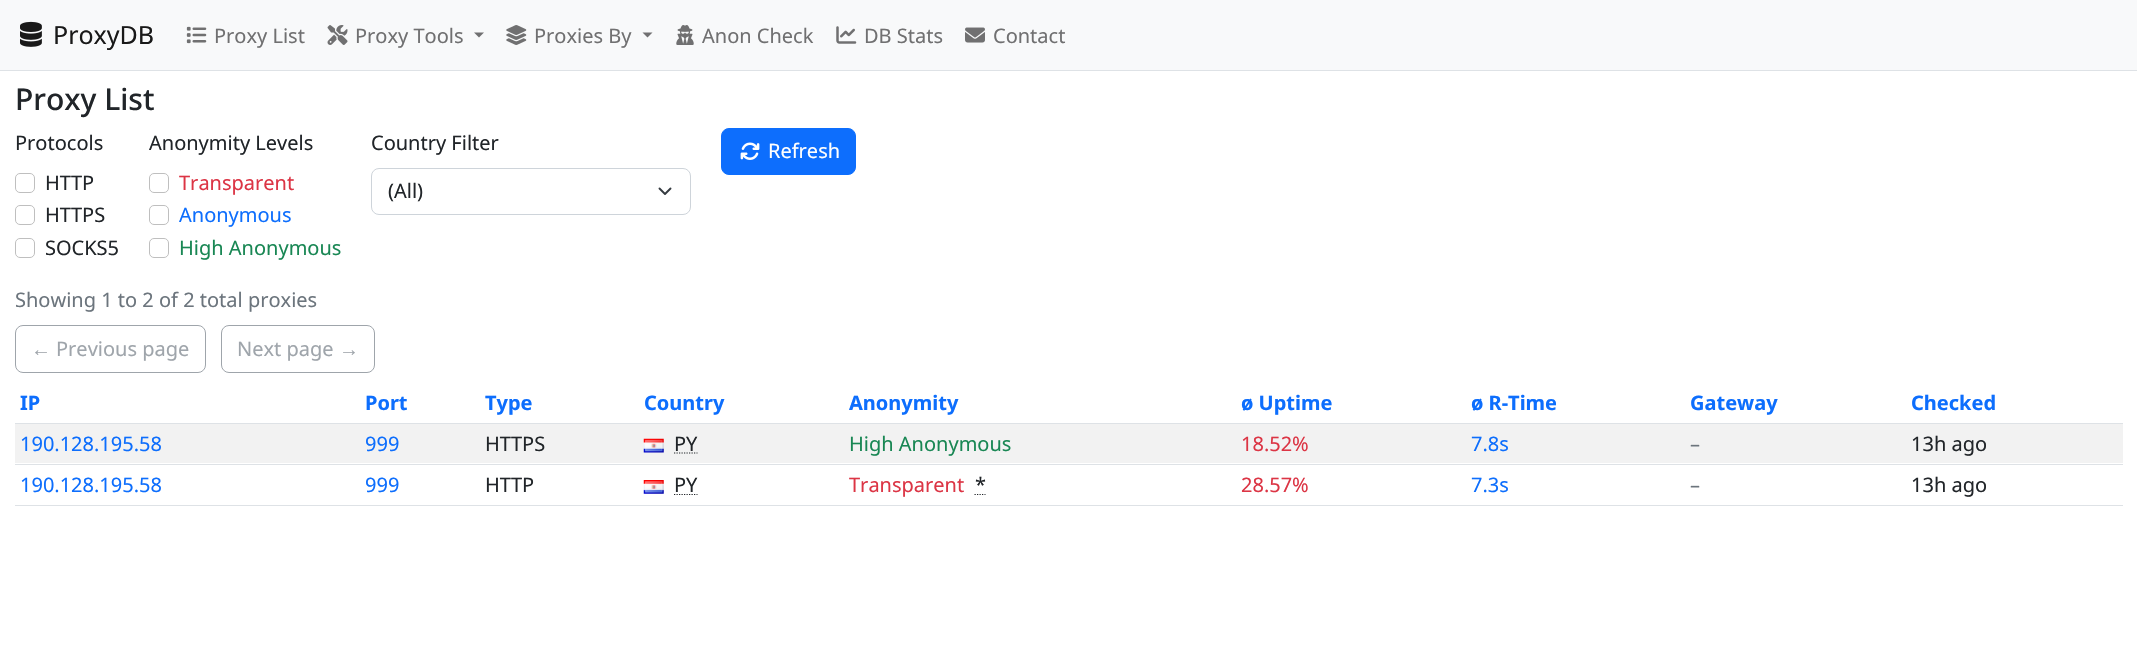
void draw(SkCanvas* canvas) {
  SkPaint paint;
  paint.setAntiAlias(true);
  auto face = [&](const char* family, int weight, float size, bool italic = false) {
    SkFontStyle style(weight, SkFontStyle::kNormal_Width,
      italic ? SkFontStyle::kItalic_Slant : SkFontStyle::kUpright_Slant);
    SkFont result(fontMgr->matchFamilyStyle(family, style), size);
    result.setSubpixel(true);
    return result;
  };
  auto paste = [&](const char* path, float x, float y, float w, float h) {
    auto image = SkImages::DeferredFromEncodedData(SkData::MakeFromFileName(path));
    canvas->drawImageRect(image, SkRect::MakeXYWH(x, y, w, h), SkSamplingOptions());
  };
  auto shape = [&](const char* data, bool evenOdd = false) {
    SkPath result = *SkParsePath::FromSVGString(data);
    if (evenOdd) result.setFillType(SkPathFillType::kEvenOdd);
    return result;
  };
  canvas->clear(0xffffffff);
  paint.setColor(0xfff8f9fa);
  canvas->drawRect(SkRect::MakeXYWH(0, 0, 2137, 70), paint);
  paint.setColor(0xffdee2e6);
  canvas->drawRect(SkRect::MakeXYWH(0, 70, 2137, 1), paint);
  paste("img/1.png", 20, 21, 22, 26);
  paste("img/2.png", 186, 26, 21, 18);
  paste("img/3.png", 327, 25, 21, 20);
  paint.setColor(0xff707071);
  canvas->drawPath(shape("M474 32.5H484L479 37.5Z"), paint);
  paste("img/4.png", 506, 25, 21, 20);
  canvas->drawPath(shape("M642.5 32.5H652.5L647.5 37.5Z"), paint);
  paste("img/5.png", 676, 25, 18, 20);
  paste("img/6.png", 836, 26, 21, 18);
  paste("img/7.png", 965, 27, 20, 16);
  paint.setStroke(true);
  paint.setStrokeWidth(1);
  paint.setColor(0xffbfbfbf);
  canvas->drawRoundRect(SkRect::MakeXYWH(15.5f, 173.5f, 19, 19), 4.5f, 4.5f, paint);
  canvas->drawRoundRect(SkRect::MakeXYWH(15.5f, 205.5f, 19, 19), 4.5f, 4.5f, paint);
  canvas->drawRoundRect(SkRect::MakeXYWH(15.5f, 238.5f, 19, 19), 4.5f, 4.5f, paint);
  canvas->drawRoundRect(SkRect::MakeXYWH(149.5f, 173.5f, 19, 19), 4.5f, 4.5f, paint);
  canvas->drawRoundRect(SkRect::MakeXYWH(149.5f, 205.5f, 19, 19), 4.5f, 4.5f, paint);
  canvas->drawRoundRect(SkRect::MakeXYWH(149.5f, 238.5f, 19, 19), 4.5f, 4.5f, paint);
  paint.setStrokeWidth(1.9f);
  paint.setStrokeCap(SkPaint::kRound_Cap);
  paint.setStrokeJoin(SkPaint::kRound_Join);
  paint.setColor(0xff343a40);
  canvas->drawPath(shape("M659.5 188.5L665 194L670.5 188.5"), paint);
  paint.setStrokeWidth(1);
  paint.setStrokeCap(SkPaint::kButt_Cap);
  paint.setStrokeJoin(SkPaint::kMiter_Join);
  paint.setColor(0xffced4da);
  canvas->drawRoundRect(SkRect::MakeXYWH(371.5f, 168.5f, 319, 46), 7.5f, 7.5f, paint);
  paint.setStroke(false);
  paint.setColor(0xff0d6efd);
  canvas->drawRoundRect(SkRect::MakeXYWH(721.5f, 128.5f, 134, 46), 7.5f, 7.5f, paint);
  paint.setStroke(true);
  canvas->drawRoundRect(SkRect::MakeXYWH(721.5f, 128.5f, 134, 46), 7.5f, 7.5f, paint);
  paste("img/8.png", 740, 142, 20, 18);
  paint.setColor(0xff9fa5ab);
  canvas->drawRoundRect(SkRect::MakeXYWH(15.5f, 325.5f, 190, 47), 7.5f, 7.5f, paint);
  canvas->drawRoundRect(SkRect::MakeXYWH(221.5f, 325.5f, 153, 47), 7.5f, 7.5f, paint);
  paint.setStroke(false);
  paint.setColor(0xffdee2e6);
  canvas->drawRect(SkRect::MakeXYWH(15, 423, 2108, 1), paint);
  paint.setColor(0xfff2f2f2);
  canvas->drawRect(SkRect::MakeXYWH(15, 424, 2108, 39), paint);
  paste("img/9.png", 643, 438, 21, 15);
  paint.setStroke(true);
  paint.setStrokeWidth(1.2f);
  paint.setColor(0xff212529);
  paint.setPathEffect(SkDashPathEffect::Make({{1.25f, 1.25f}}, 0));
  canvas->drawPath(shape("M674 453H697.5"), paint);
  paint.setPathEffect(nullptr);
  paint.setStroke(false);
  paint.setColor(0xffdee2e6);
  canvas->drawRect(SkRect::MakeXYWH(15, 464, 2108, 1), paint);
  paste("img/10.png", 643, 480, 21, 14);
  paint.setStroke(true);
  paint.setColor(0xff212529);
  paint.setPathEffect(SkDashPathEffect::Make({{1.25f, 1.25f}}, 0));
  canvas->drawPath(shape("M674 494.5H697.5"), paint);
  paint.setPathEffect(nullptr);
  paint.setPathEffect(SkDashPathEffect::Make({{1.25f, 1.25f}}, 0));
  canvas->drawPath(shape("M974.5 494.5H985.5"), paint);
  paint.setPathEffect(nullptr);
  paint.setStroke(false);
  paint.setColor(0xffdee2e6);
  canvas->drawRect(SkRect::MakeXYWH(15, 505, 2108, 1), paint);
  auto f0 = face("Noto Sans", 400, 25);
  paint.setColor(0xff191919);
  canvas->drawString("ProxyDB", 53, 44, f0, paint);
  auto f1 = face("Noto Sans", 400, 20);
  paint.setColor(0xff707071);
  {
    const struct { const char* s; float x, y; } items[] = {
      {"Proxy List", 214, 43},
      {"Proxy Tools", 355, 43},
      {"Proxies By", 534, 43},
      {"Anon Check", 702, 43},
      {"DB Stats", 864, 43},
      {"Contact", 993, 43},
    };
    for (auto [s, x, y] : items) {
      canvas->drawString(s, x, y, f1, paint);
    }
  }
  auto f2 = face("Noto Sans", 500, 30);
  paint.setColor(0xff212529);
  canvas->drawString("Proxy List", 15, 110, f2, paint);
  {
    const struct { const char* s; float x, y; } items[] = {
      {"Protocols", 15, 150},
      {"HTTP", 45, 190},
      {"HTTPS", 45, 222},
      {"SOCKS5", 45, 255},
      {"Anonymity Levels", 149, 150},
    };
    for (auto [s, x, y] : items) {
      canvas->drawString(s, x, y, f1, paint);
    }
  }
  paint.setColor(0xffdc3545);
  canvas->drawString("Transparent", 179, 190, f1, paint);
  paint.setColor(0xff0d6efd);
  canvas->drawString("Anonymous", 179, 222, f1, paint);
  paint.setColor(0xff198754);
  canvas->drawString("High Anonymous", 179, 255, f1, paint);
  paint.setColor(0xff212529);
  canvas->drawString("Country Filter", 371, 150, f1, paint);
  canvas->drawString("(All)", 388, 198, f1, paint);
  paint.setColor(0xffffffff);
  canvas->drawString("Refresh", 768, 158, f1, paint);
  paint.setColor(0xff6c757d);
  canvas->drawString("Showing 1 to 2 of 2 total proxies", 15, 307, f1, paint);
  auto f3 = face("Liberation Sans", 400, 20);
  paint.setColor(0xff9fa5ab);
  canvas->drawString("←", 31, 356, f3, paint);
  canvas->drawString("Previous page", 56, 356, f1, paint);
  canvas->drawString("Next page", 237, 356, f1, paint);
  canvas->drawString("→", 339, 356, f3, paint);
  auto f4 = face("Noto Sans", 700, 20);
  paint.setColor(0xff0d6efd);
  {
    const struct { const char* s; float x, y; } items[] = {
      {"IP", 20, 410},
      {"Port", 365, 410},
      {"Type", 485, 410},
      {"Country", 644, 410},
      {"Anonymity", 849, 410},
      {"ø Uptime", 1241, 410},
      {"ø R-Time", 1471, 410},
      {"Gateway", 1690, 410},
      {"Checked", 1911, 410},
    };
    for (auto [s, x, y] : items) {
      canvas->drawString(s, x, y, f4, paint);
    }
  }
  canvas->drawString("190.128.195.58", 20, 451, f1, paint);
  canvas->drawString("999", 365, 451, f1, paint);
  paint.setColor(0xff212529);
  canvas->drawString("HTTPS", 485, 451, f1, paint);
  canvas->drawString("PY", 674, 451, f1, paint);
  paint.setColor(0xff198754);
  canvas->drawString("High Anonymous", 849, 451, f1, paint);
  paint.setColor(0xffdc3545);
  canvas->drawString("18.52%", 1241, 451, f1, paint);
  paint.setColor(0xff0d6efd);
  canvas->drawString("7.8s", 1471, 451, f1, paint);
  paint.setColor(0xff6c757d);
  canvas->drawString("–", 1690, 451, f1, paint);
  paint.setColor(0xff212529);
  canvas->drawString("13h ago", 1911, 451, f1, paint);
  paint.setColor(0xff0d6efd);
  canvas->drawString("190.128.195.58", 20, 492, f1, paint);
  canvas->drawString("999", 365, 492, f1, paint);
  paint.setColor(0xff212529);
  canvas->drawString("HTTP", 485, 492, f1, paint);
  canvas->drawString("PY", 674, 492, f1, paint);
  paint.setColor(0xffdc3545);
  canvas->drawString("Transparent", 849, 492, f1, paint);
  paint.setColor(0xff212529);
  canvas->drawString("*", 975, 492, f1, paint);
  paint.setColor(0xffdc3545);
  canvas->drawString("28.57%", 1241, 492, f1, paint);
  paint.setColor(0xff0d6efd);
  canvas->drawString("7.3s", 1471, 492, f1, paint);
  paint.setColor(0xff6c757d);
  canvas->drawString("–", 1690, 492, f1, paint);
  paint.setColor(0xff212529);
  canvas->drawString("13h ago", 1911, 492, f1, paint);
}
